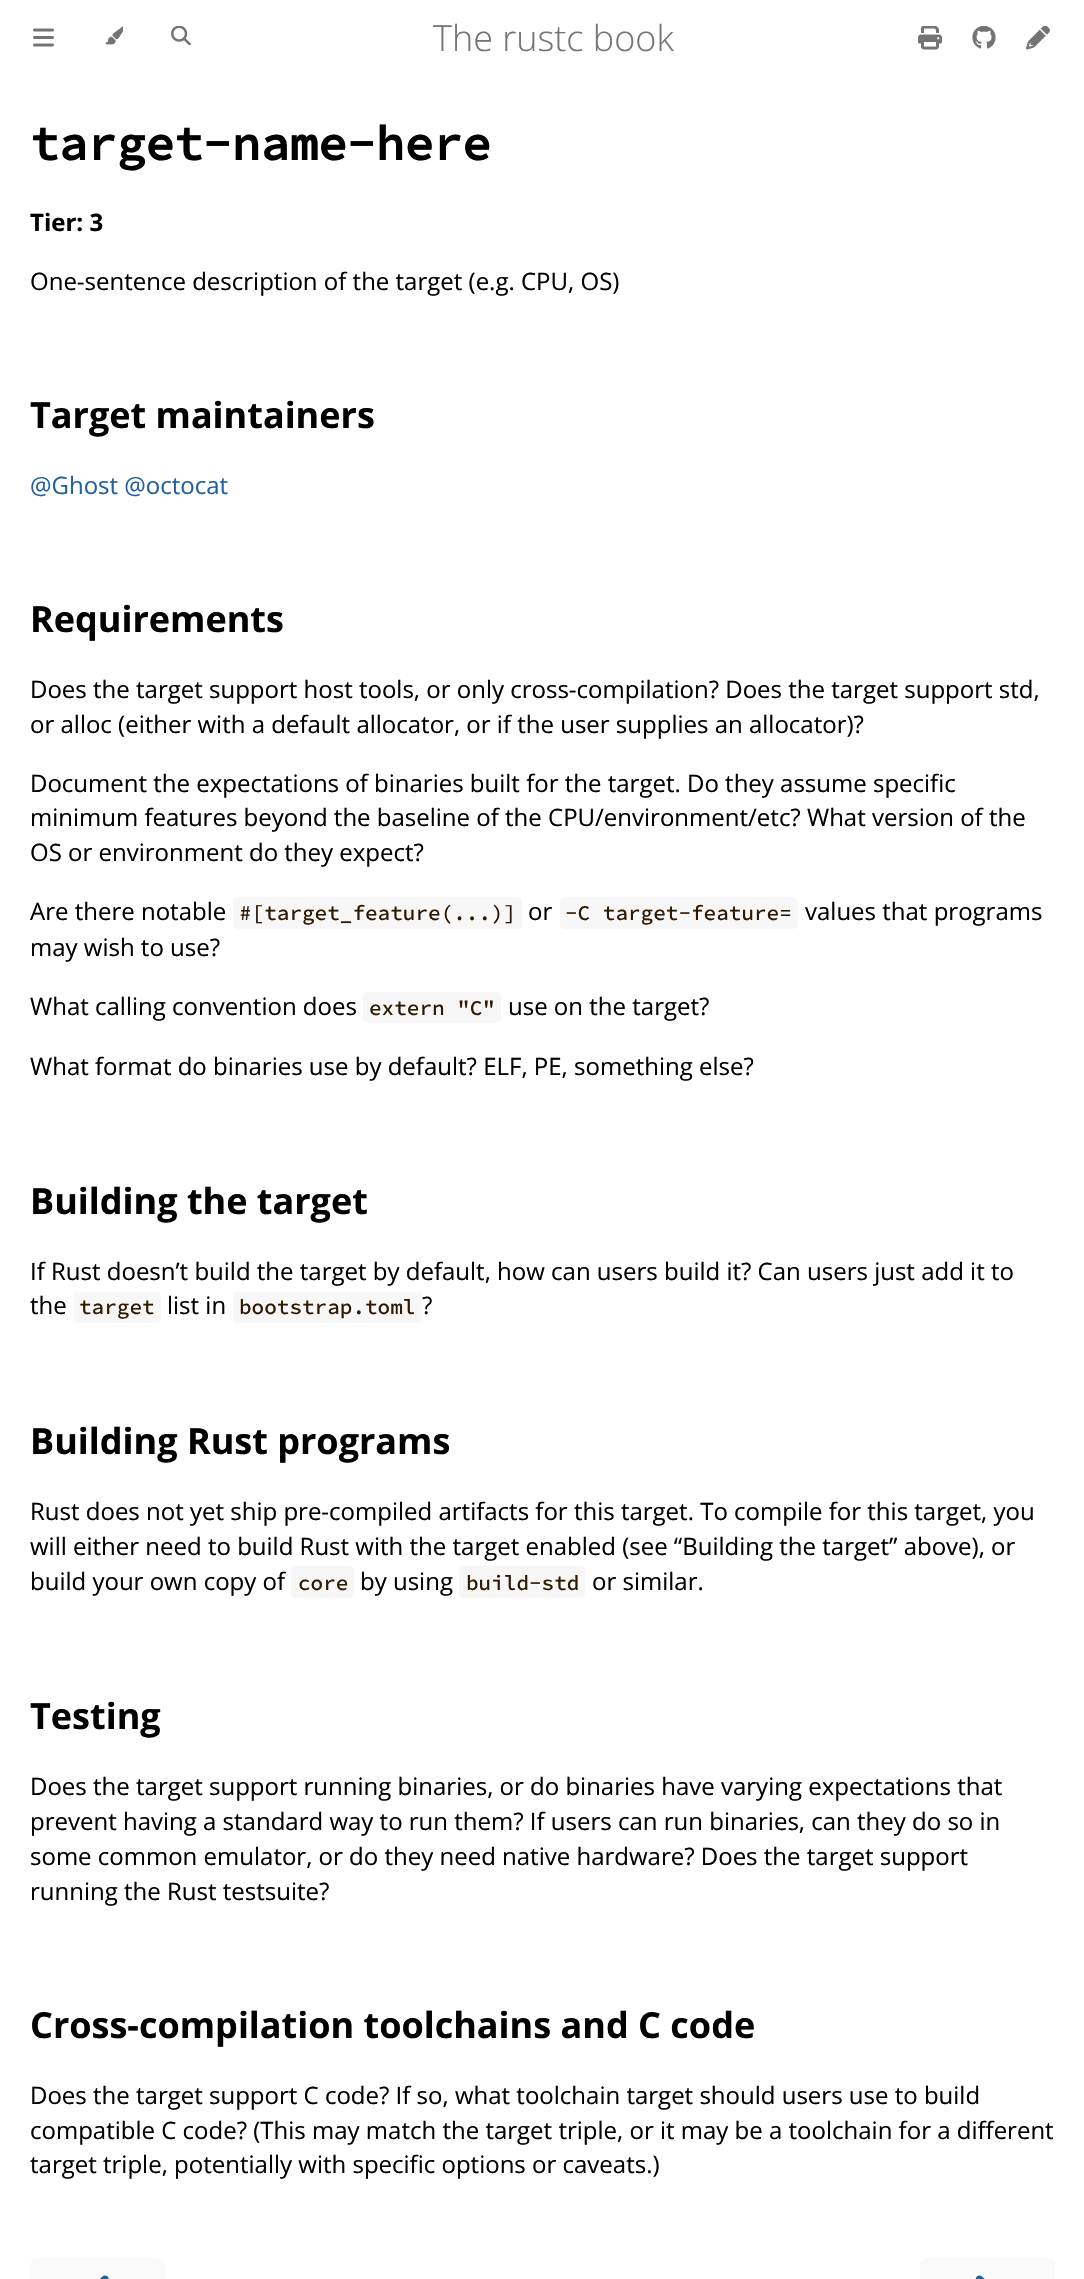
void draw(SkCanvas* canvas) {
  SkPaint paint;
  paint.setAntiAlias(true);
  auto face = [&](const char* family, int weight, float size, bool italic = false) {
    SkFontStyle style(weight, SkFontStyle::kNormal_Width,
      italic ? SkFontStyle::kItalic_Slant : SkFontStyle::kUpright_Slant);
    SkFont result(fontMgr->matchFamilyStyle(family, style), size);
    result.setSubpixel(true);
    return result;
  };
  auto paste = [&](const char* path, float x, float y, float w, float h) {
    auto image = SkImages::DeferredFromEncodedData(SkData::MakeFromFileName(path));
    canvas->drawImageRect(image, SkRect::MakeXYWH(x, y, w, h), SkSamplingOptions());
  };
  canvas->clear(0xffffffff);
  paste("img/1.png", 33, 28, 21, 19);
  paste("img/2.png", 105, 26, 18, 19);
  paste("img/3.png", 171, 26, 20, 19);
  paste("img/4.png", 918, 26, 24, 24);
  paste("img/5.png", 972, 26, 24, 23);
  paste("img/6.png", 1026, 26, 24, 24);
  paint.setColor(0xfff6f7f6);
  canvas->drawRoundRect(SkRect::MakeXYWH(233, 897, 289, 32), 5, 5, paint);
  canvas->drawRoundRect(SkRect::MakeXYWH(560, 897, 238, 32), 5, 5, paint);
  canvas->drawRoundRect(SkRect::MakeXYWH(363, 992, 138, 31), 5, 5, paint);
  canvas->drawRoundRect(SkRect::MakeXYWH(74, 1292, 87, 31), 5, 5, paint);
  canvas->drawRoundRect(SkRect::MakeXYWH(233, 1292, 189, 31), 5, 5, paint);
  canvas->drawRoundRect(SkRect::MakeXYWH(291, 1566, 63, 32), 5, 5, paint);
  canvas->drawRoundRect(SkRect::MakeXYWH(459, 1566, 126, 32), 5, 5, paint);
  paint.setColor(0xfffafafa);
  canvas->drawRoundRect(SkRect::MakeXYWH(30, 2258, 135, 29), 8, 8, paint);
  paste("img/7.png", 100, 2275, 9, 4);
  canvas->drawRoundRect(SkRect::MakeXYWH(920, 2258, 135, 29), 8, 8, paint);
  paste("img/8.png", 975, 2275, 10, 4);
  auto f0 = face("Open Sans", 300, 36);
  paint.setColor(0xff747474);
  canvas->drawString("The rustc book", 433, 51, f0, paint);
  auto f1 = face("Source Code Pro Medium", 700, 48);
  paint.setColor(0xff000000);
  canvas->drawString("target-name-here", 30, 160, f1, paint);
  auto f2 = face("Open Sans", 700, 24);
  canvas->drawString("Tier: 3", 30, 231, f2, paint);
  auto f3 = face("Open Sans", 400, 24);
  canvas->drawString("One-sentence description of the target (e.g. CPU, OS)", 30, 290, f3, paint);
  auto f4 = face("Open Sans", 700, 36);
  canvas->drawString("Target maintainers", 30, 428, f4, paint);
  paint.setColor(0xff20609f);
  canvas->drawString("@Ghost @octocat", 30, 494, f3, paint);
  paint.setColor(0xff000000);
  canvas->drawString("Requirements", 30, 632, f4, paint);
  {
    const struct { const char* s; float x, y; } items[] = {
      {"Does the target support host tools, or only cross-compilation? Does the target support std,", 30, 698},
      {"or alloc (either with a default allocator, or if the user supplies an allocator)?", 30, 733},
      {"Document the expectations of binaries built for the target. Do they assume specific", 30, 792},
      {"minimum features beyond the baseline of the CPU/environment/etc? What version of the", 30, 826},
      {"OS or environment do they expect?", 30, 861},
      {"Are there notable", 30, 920},
    };
    for (auto [s, x, y] : items) {
      canvas->drawString(s, x, y, f3, paint);
    }
  }
  auto f5 = face("Source Code Pro Medium", 500, 21);
  paint.setColor(0xff301900);
  canvas->drawString("#[target_feature(...)]", 239, 920, f5, paint);
  paint.setColor(0xff000000);
  canvas->drawString("or", 528, 920, f3, paint);
  paint.setColor(0xff301900);
  canvas->drawString("-C target-feature=", 565, 920, f5, paint);
  paint.setColor(0xff000000);
  {
    const struct { const char* s; float x, y; } items[] = {
      {"values that programs", 805, 920},
      {"may wish to use?", 30, 956},
      {"What calling convention does", 30, 1015},
    };
    for (auto [s, x, y] : items) {
      canvas->drawString(s, x, y, f3, paint);
    }
  }
  paint.setColor(0xff301900);
  canvas->drawString("extern \"C\"", 369, 1015, f5, paint);
  paint.setColor(0xff000000);
  canvas->drawString("use on the target?", 508, 1015, f3, paint);
  canvas->drawString("What format do binaries use by default? ELF, PE, something else?", 30, 1075, f3, paint);
  canvas->drawString("Building the target", 30, 1214, f4, paint);
  canvas->drawString("If Rust doesn’t build the target by default, how can users build it? Can users just add it to", 30, 1280, f3, paint);
  canvas->drawString("the", 30, 1314, f3, paint);
  paint.setColor(0xff301900);
  canvas->drawString("target", 79, 1314, f5, paint);
  paint.setColor(0xff000000);
  canvas->drawString("list in", 167, 1314, f3, paint);
  paint.setColor(0xff301900);
  canvas->drawString("bootstrap.toml", 239, 1314, f5, paint);
  paint.setColor(0xff000000);
  canvas->drawString("?", 422, 1314, f3, paint);
  canvas->drawString("Building Rust programs", 30, 1454, f4, paint);
  {
    const struct { const char* s; float x, y; } items[] = {
      {"Rust does not yet ship pre-compiled artifacts for this target. To compile for this target, you", 30, 1520},
      {"will either need to build Rust with the target enabled (see “Building the target” above), or", 30, 1555},
      {"build your own copy of", 30, 1590},
    };
    for (auto [s, x, y] : items) {
      canvas->drawString(s, x, y, f3, paint);
    }
  }
  paint.setColor(0xff301900);
  canvas->drawString("core", 298, 1590, f5, paint);
  paint.setColor(0xff000000);
  canvas->drawString("by using", 360, 1590, f3, paint);
  paint.setColor(0xff301900);
  canvas->drawString("build-std", 466, 1590, f5, paint);
  paint.setColor(0xff000000);
  canvas->drawString("or similar.", 592, 1590, f3, paint);
  canvas->drawString("Testing", 30, 1729, f4, paint);
  {
    const struct { const char* s; float x, y; } items[] = {
      {"Does the target support running binaries, or do binaries have varying expectations that", 30, 1795},
      {"prevent having a standard way to run them? If users can run binaries, can they do so in", 30, 1830},
      {"some common emulator, or do they need native hardware? Does the target support", 30, 1865},
      {"running the Rust testsuite?", 30, 1900},
    };
    for (auto [s, x, y] : items) {
      canvas->drawString(s, x, y, f3, paint);
    }
  }
  canvas->drawString("Cross-compilation toolchains and C code", 30, 2038, f4, paint);
  {
    const struct { const char* s; float x, y; } items[] = {
      {"Does the target support C code? If so, what toolchain target should users use to build", 30, 2104},
      {"compatible C code? (This may match the target triple, or it may be a toolchain for a different", 30, 2139},
      {"target triple, potentially with specific options or caveats.)", 30, 2173},
    };
    for (auto [s, x, y] : items) {
      canvas->drawString(s, x, y, f3, paint);
    }
  }
}
